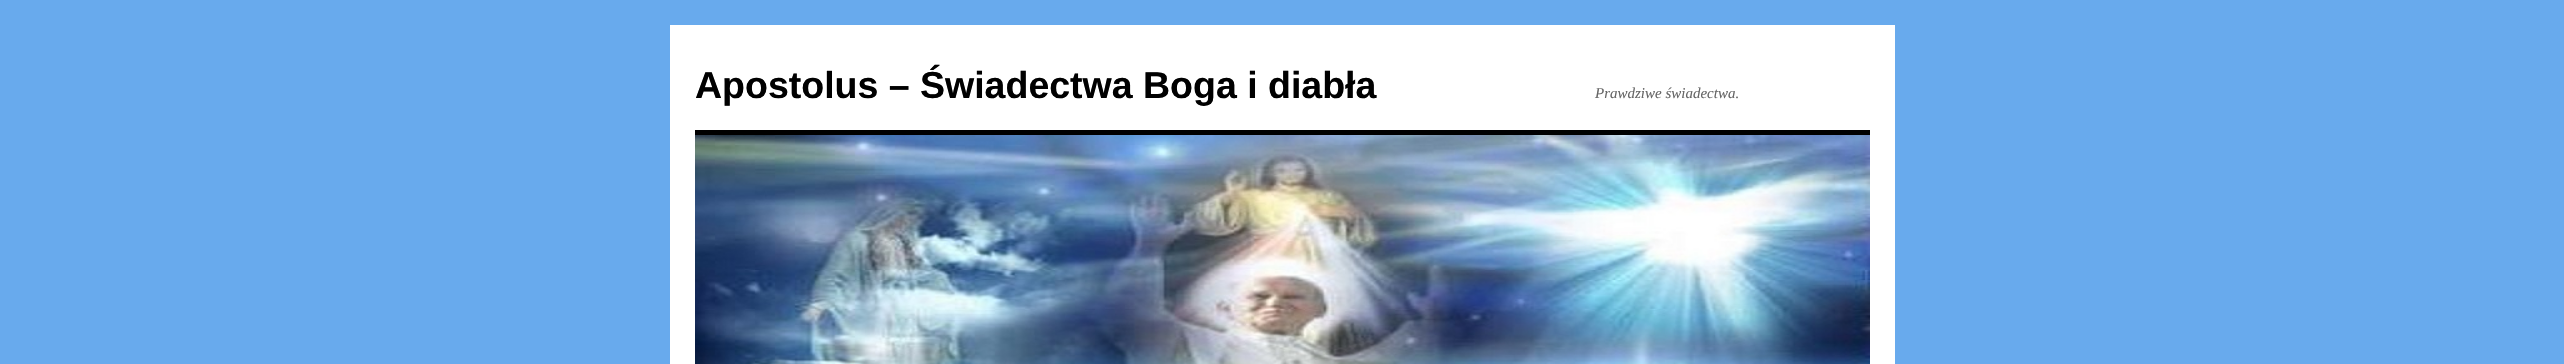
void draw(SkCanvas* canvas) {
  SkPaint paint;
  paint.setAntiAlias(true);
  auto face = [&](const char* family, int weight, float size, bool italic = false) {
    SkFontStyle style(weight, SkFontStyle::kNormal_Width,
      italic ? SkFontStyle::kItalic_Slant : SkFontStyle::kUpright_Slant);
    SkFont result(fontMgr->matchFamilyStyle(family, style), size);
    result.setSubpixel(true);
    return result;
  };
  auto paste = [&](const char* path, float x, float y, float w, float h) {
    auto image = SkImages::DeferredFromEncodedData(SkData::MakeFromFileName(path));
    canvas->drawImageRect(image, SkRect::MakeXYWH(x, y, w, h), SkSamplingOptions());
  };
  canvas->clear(0xff68aaed);
  paint.setColor(0xffffffff);
  canvas->drawRect(SkRect::MakeXYWH(670, 25, 1225, 339), paint);
  paint.setColor(0xff000000);
  canvas->drawRect(SkRect::MakeXYWH(695, 130, 1175, 5), paint);
  paste("img/1.png", 695, 135, 1175, 229);
  auto f0 = face("Liberation Sans", 700, 37.5f);
  canvas->drawString("Apostolus – Świadectwa Boga i diabła", 695, 98, f0, paint);
  auto f1 = face("Liberation Serif", 400, 15, true);
  paint.setColor(0xff666666);
  canvas->drawString("Prawdziwe świadectwa.", 1595, 98, f1, paint);
}
